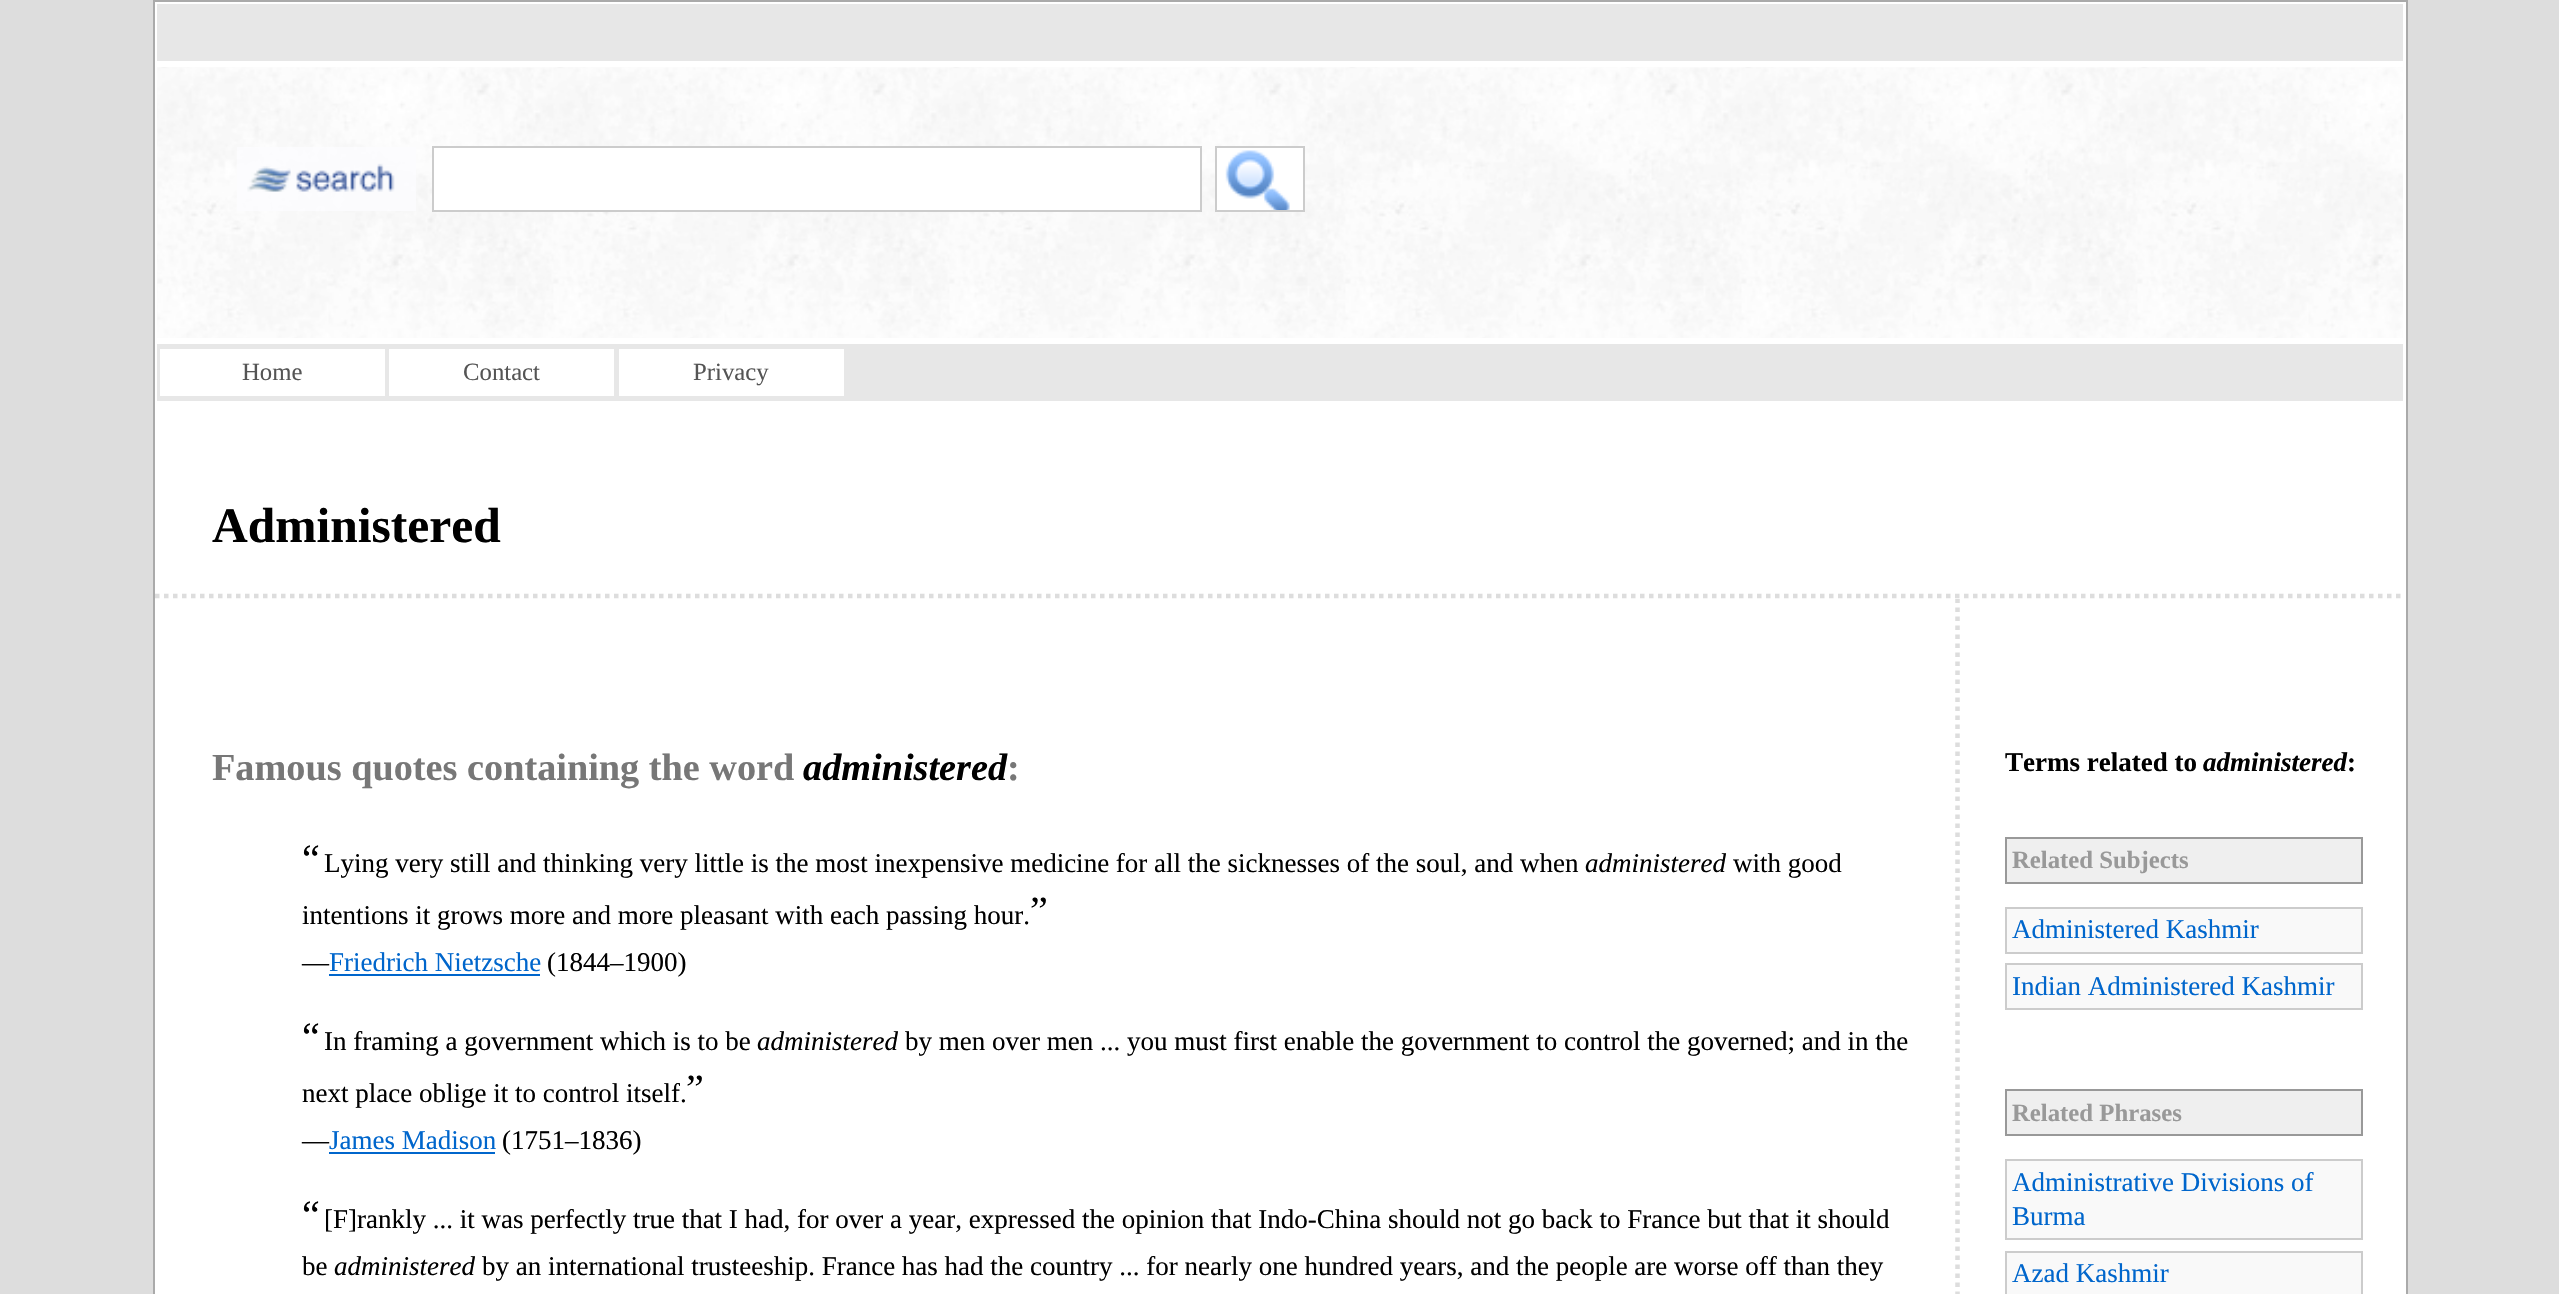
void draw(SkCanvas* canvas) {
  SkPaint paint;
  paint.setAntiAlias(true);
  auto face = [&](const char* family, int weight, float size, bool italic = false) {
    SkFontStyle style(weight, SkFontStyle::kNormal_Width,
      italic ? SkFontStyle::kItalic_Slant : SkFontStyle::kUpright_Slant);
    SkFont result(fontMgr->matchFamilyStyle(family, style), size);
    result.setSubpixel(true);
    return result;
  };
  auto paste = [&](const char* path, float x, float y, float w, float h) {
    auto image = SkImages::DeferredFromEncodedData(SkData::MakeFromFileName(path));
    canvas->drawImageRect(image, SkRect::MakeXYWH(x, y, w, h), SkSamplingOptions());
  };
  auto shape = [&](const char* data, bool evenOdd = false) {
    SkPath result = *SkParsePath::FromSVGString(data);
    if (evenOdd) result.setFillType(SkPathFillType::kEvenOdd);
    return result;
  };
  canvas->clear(0xffdddddd);
  paint.setColor(0xffffffff);
  canvas->drawRect(SkRect::MakeXYWH(154, 1, 2253, 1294), paint);
  paint.setStroke(true);
  paint.setStrokeWidth(2);
  paint.setColor(0xffaaaaaa);
  canvas->drawRect(SkRect::MakeXYWH(154, 1, 2253, 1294), paint);
  paint.setStroke(false);
  paint.setColor(0xffe7e7e7);
  canvas->drawRect(SkRect::MakeXYWH(157, 4, 2246, 57), paint);
  paste("img/1.png", 157, 67, 2246, 271);
  paste("img/2.png", 237, 147, 179, 64);
  paint.setColor(0xffffffff);
  canvas->drawRect(SkRect::MakeXYWH(433, 147, 768, 64), paint);
  paint.setStroke(true);
  paint.setColor(0xffcccccc);
  canvas->drawRect(SkRect::MakeXYWH(433, 147, 768, 64), paint);
  paint.setStroke(false);
  paint.setColor(0xffffffff);
  canvas->drawRect(SkRect::MakeXYWH(1217, 148, 86, 62), paint);
  paste("img/3.png", 1225, 150, 65, 60);
  paint.setStroke(true);
  paint.setColor(0xffcccccc);
  canvas->drawRect(SkRect::MakeXYWH(1216, 147, 88, 64), paint);
  paint.setStroke(false);
  {
    const struct { float x, y, w, h; SkColor color; } items[] = {
      {157, 344, 2246, 57, 0xffe7e7e7},
      {160, 349, 225, 47, 0xffffffff},
      {389, 349, 225, 47, 0xffffffff},
      {619, 349, 225, 47, 0xffffffff},
    };
    for (auto [x, y, w, h, color] : items) {
      paint.setColor(color);
      canvas->drawRect(SkRect::MakeXYWH(x, y, w, h), paint);
    }
  }
  paint.setStroke(true);
  paint.setStrokeWidth(4.5f);
  paint.setColor(0xffdddddd);
  paint.setPathEffect(SkDashPathEffect::Make({{4.5f, 4.5f}}, 0));
  canvas->drawPath(shape("M155 596H2405"), paint);
  paint.setPathEffect(nullptr);
  canvas->save();
  canvas->clipRect(SkRect::MakeXYWH(155, 599, 2250, 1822));
  paint.setPathEffect(SkDashPathEffect::Make({{4.5f, 4.5f}}, 0));
  canvas->drawPath(shape("M1957.5 598.5V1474"), paint);
  paint.setPathEffect(nullptr);
  canvas->restore();
  paint.setStroke(false);
  paint.setColor(0xff0066cc);
  canvas->drawRect(SkRect::MakeXYWH(329, 974, 211, 2), paint);
  canvas->drawRect(SkRect::MakeXYWH(329, 1152, 166, 2), paint);
  paint.setColor(0xffefefef);
  canvas->drawRect(SkRect::MakeXYWH(2006, 838, 356, 45), paint);
  paint.setStroke(true);
  paint.setStrokeWidth(2);
  paint.setColor(0xff999999);
  canvas->drawRect(SkRect::MakeXYWH(2006, 838, 356, 45), paint);
  paint.setStroke(false);
  paint.setColor(0xfff9f9f9);
  canvas->drawRect(SkRect::MakeXYWH(2006, 908, 356, 45), paint);
  paint.setStroke(true);
  paint.setColor(0xffcccccc);
  canvas->drawRect(SkRect::MakeXYWH(2006, 908, 356, 45), paint);
  paint.setStroke(false);
  paint.setColor(0xfff9f9f9);
  canvas->drawRect(SkRect::MakeXYWH(2006, 964, 356, 45), paint);
  paint.setStroke(true);
  paint.setColor(0xffcccccc);
  canvas->drawRect(SkRect::MakeXYWH(2006, 964, 356, 45), paint);
  paint.setStroke(false);
  paint.setColor(0xffefefef);
  canvas->drawRect(SkRect::MakeXYWH(2006, 1090, 356, 45), paint);
  paint.setStroke(true);
  paint.setColor(0xff999999);
  canvas->drawRect(SkRect::MakeXYWH(2006, 1090, 356, 45), paint);
  paint.setStroke(false);
  paint.setColor(0xfff9f9f9);
  canvas->drawRect(SkRect::MakeXYWH(2006, 1160, 356, 79), paint);
  paint.setStroke(true);
  paint.setColor(0xffcccccc);
  canvas->drawRect(SkRect::MakeXYWH(2006, 1160, 356, 79), paint);
  paint.setStroke(false);
  paint.setColor(0xfff9f9f9);
  canvas->drawRect(SkRect::MakeXYWH(2006, 1252, 356, 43), paint);
  paint.setStroke(true);
  paint.setColor(0xffcccccc);
  canvas->drawRect(SkRect::MakeXYWH(2006, 1252, 356, 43), paint);
  auto f0 = face("Liberation Serif", 400, 24.75f);
  paint.setStroke(false);
  paint.setColor(0xff555555);
  {
    const struct { const char* s; float x, y; } items[] = {
      {"Home", 242, 380},
      {"Contact", 463, 380},
      {"Privacy", 693, 380},
    };
    for (auto [s, x, y] : items) {
      canvas->drawString(s, x, y, f0, paint);
    }
  }
  auto f1 = face("Liberation Serif", 700, 49.5f);
  paint.setColor(0xff000000);
  canvas->drawString("Administered", 212, 542, f1, paint);
  auto f2 = face("Liberation Serif", 700, 38.25f);
  paint.setColor(0xff777777);
  canvas->drawString("Famous quotes containing the word", 212, 780, f2, paint);
  auto f3 = face("Liberation Serif", 700, 38.25f, true);
  paint.setColor(0xff000000);
  canvas->drawString("administered", 803, 780, f3, paint);
  paint.setColor(0xff777777);
  canvas->drawString(":", 1007, 780, f2, paint);
  auto f4 = face("Liberation Serif", 400, 40);
  paint.setColor(0xff000000);
  canvas->drawString("“", 302, 872, f4, paint);
  auto f5 = face("Liberation Serif", 400, 27);
  canvas->drawString("Lying very still and thinking very little is the most inexpensive medicine for all the sicknesses of the soul, and when", 324, 872, f5, paint);
  auto f6 = face("Liberation Serif", 400, 27, true);
  canvas->drawString("administered", 1585, 872, f6, paint);
  canvas->drawString("with good", 1733, 872, f5, paint);
  canvas->drawString("”", 1030, 924, f4, paint);
  canvas->drawString("intentions it grows more and more pleasant with each passing hour.", 302, 924, f5, paint);
  canvas->drawString("—", 302, 971, f5, paint);
  paint.setColor(0xff0066cc);
  canvas->drawString("Friedrich Nietzsche", 329, 971, f5, paint);
  paint.setColor(0xff000000);
  canvas->drawString("(1844–1900)", 547, 971, f5, paint);
  canvas->drawString("“", 302, 1050, f4, paint);
  canvas->drawString("In framing a government which is to be", 324, 1050, f5, paint);
  canvas->drawString("administered", 757, 1050, f6, paint);
  canvas->drawString("by men over men ... you must first enable the government to control the governed; and in the", 905, 1050, f5, paint);
  canvas->drawString("”", 686, 1102, f4, paint);
  canvas->drawString("next place oblige it to control itself.", 302, 1102, f5, paint);
  canvas->drawString("—", 302, 1149, f5, paint);
  paint.setColor(0xff0066cc);
  canvas->drawString("James Madison", 329, 1149, f5, paint);
  paint.setColor(0xff000000);
  canvas->drawString("(1751–1836)", 502, 1149, f5, paint);
  canvas->drawString("“", 302, 1228, f4, paint);
  canvas->drawString("[F]rankly ... it was perfectly true that I had, for over a year, expressed the opinion that Indo-China should not go back to France but that it should", 324, 1228, f5, paint);
  canvas->drawString("be", 302, 1275, f5, paint);
  canvas->drawString("administered", 334, 1275, f6, paint);
  canvas->drawString("by an international trusteeship. France has had the country ... for nearly one hundred years, and the people are worse off than they", 482, 1275, f5, paint);
  auto f7 = face("Liberation Serif", 700, 27);
  canvas->drawString("Terms related to", 2005, 771, f7, paint);
  auto f8 = face("Liberation Serif", 700, 27, true);
  canvas->drawString("administered", 2203, 771, f8, paint);
  canvas->drawString(":", 2347, 771, f7, paint);
  auto f9 = face("Liberation Serif", 700, 24.75f);
  paint.setColor(0xff999999);
  canvas->drawString("Related Subjects", 2012, 868, f9, paint);
  paint.setColor(0xff0066cc);
  canvas->drawString("Administered Kashmir", 2012, 938, f5, paint);
  canvas->drawString("Indian Administered Kashmir", 2012, 995, f5, paint);
  paint.setColor(0xff999999);
  canvas->drawString("Related Phrases", 2012, 1121, f9, paint);
  paint.setColor(0xff0066cc);
  {
    const struct { const char* s; float x, y; } items[] = {
      {"Administrative Divisions of", 2012, 1191},
      {"Burma", 2012, 1225},
      {"Azad Kashmir", 2012, 1282},
    };
    for (auto [s, x, y] : items) {
      canvas->drawString(s, x, y, f5, paint);
    }
  }
}
